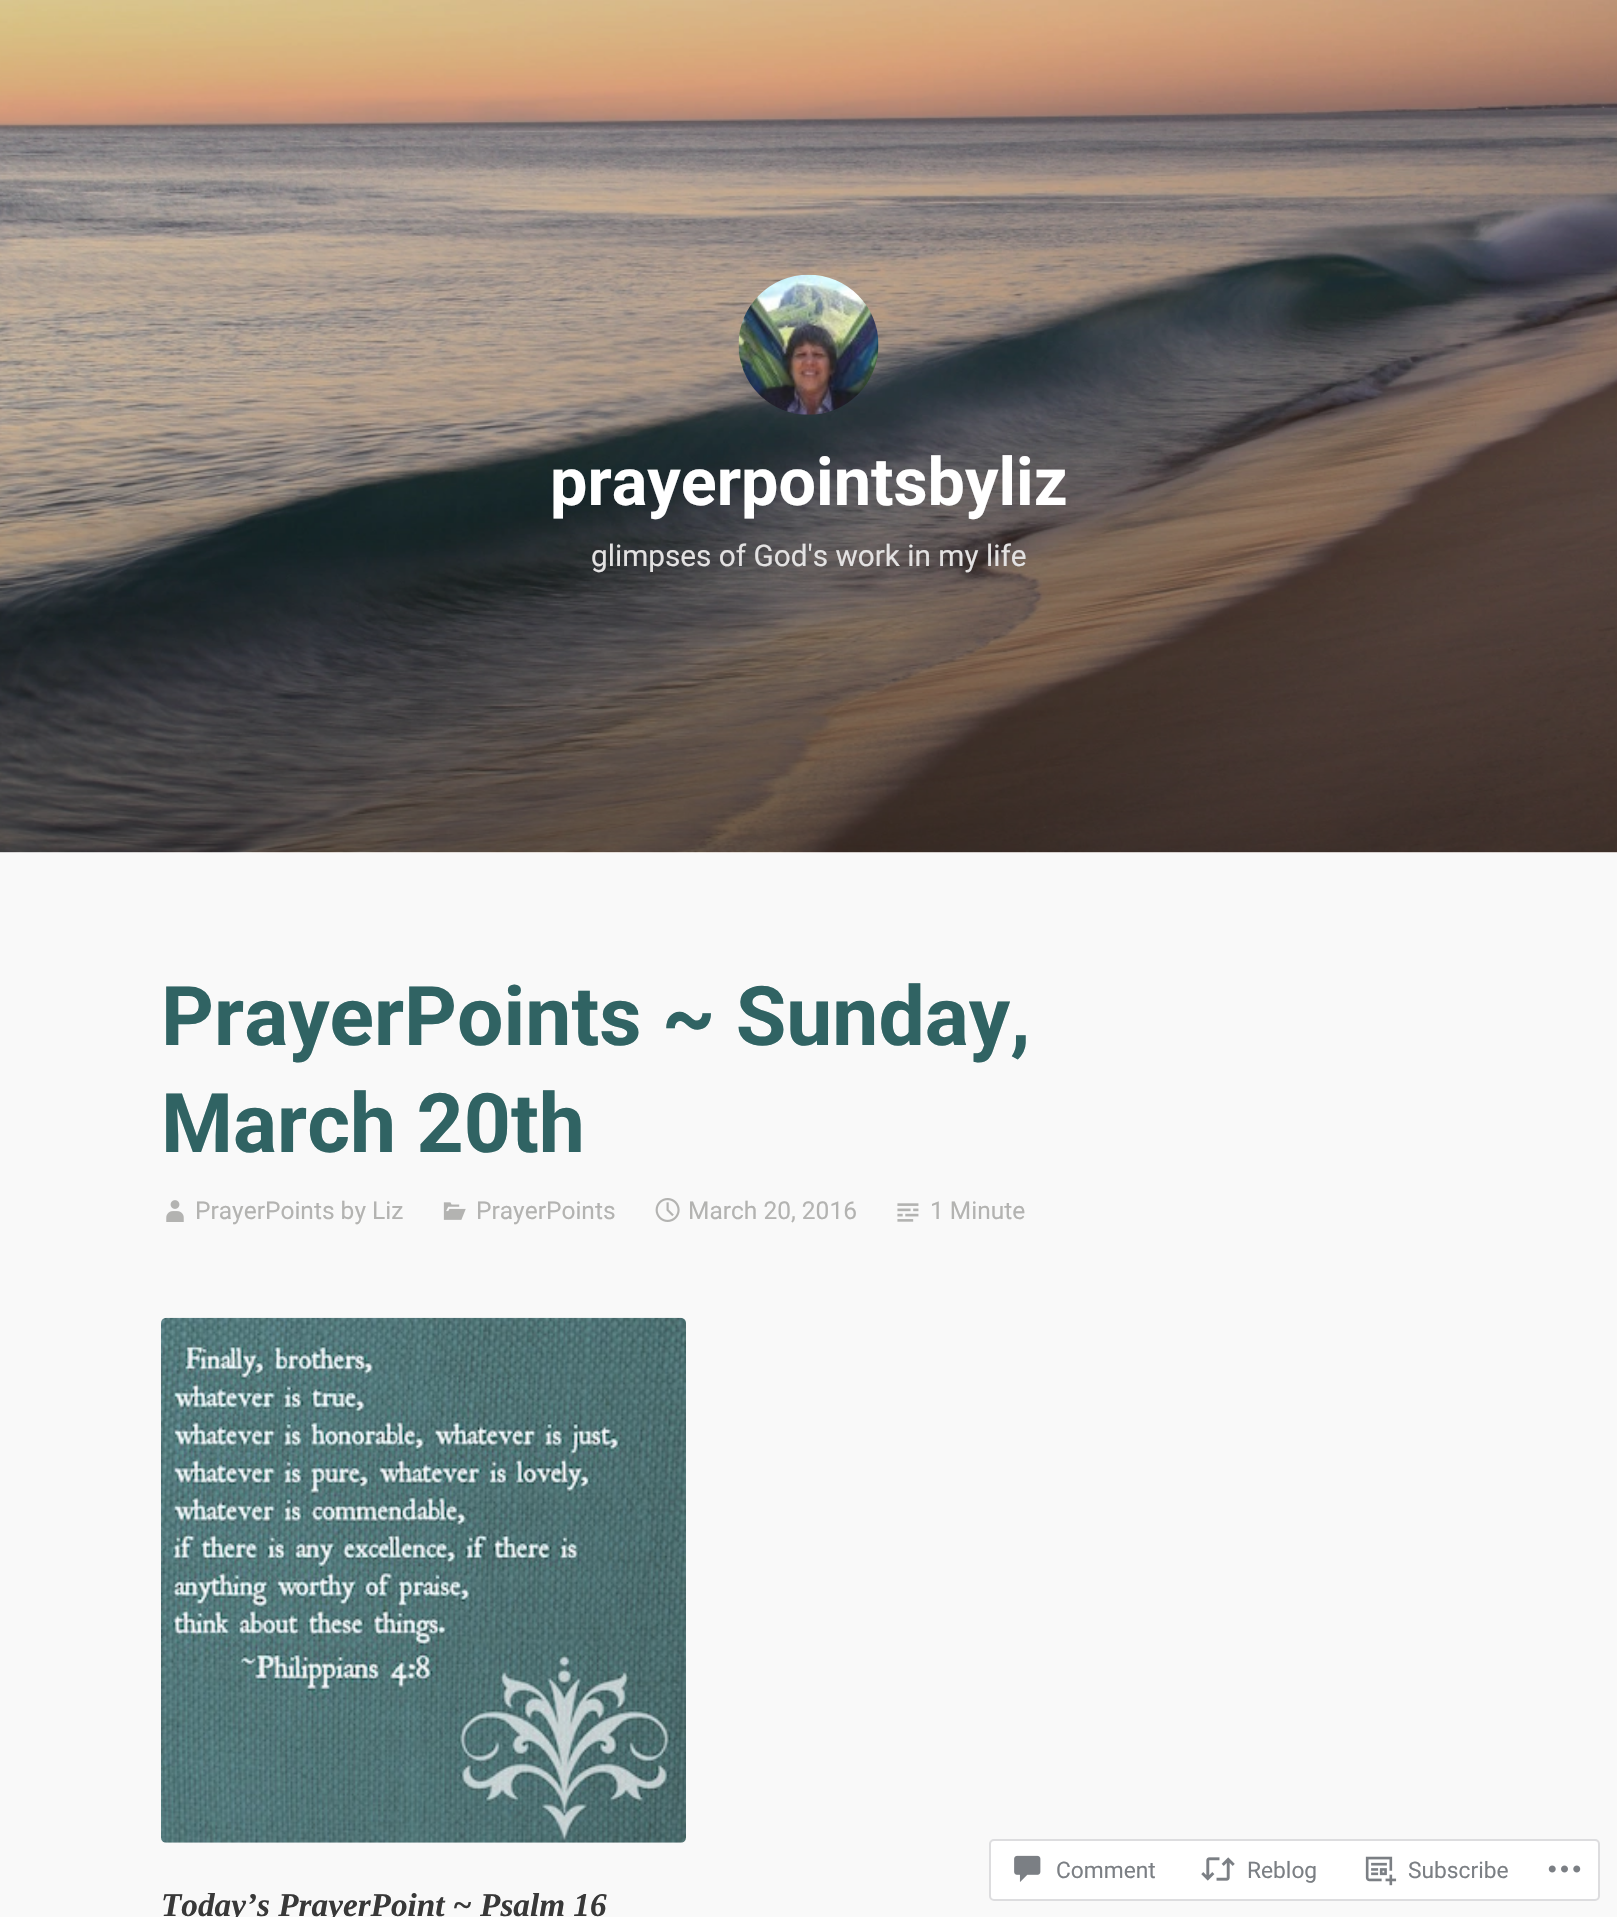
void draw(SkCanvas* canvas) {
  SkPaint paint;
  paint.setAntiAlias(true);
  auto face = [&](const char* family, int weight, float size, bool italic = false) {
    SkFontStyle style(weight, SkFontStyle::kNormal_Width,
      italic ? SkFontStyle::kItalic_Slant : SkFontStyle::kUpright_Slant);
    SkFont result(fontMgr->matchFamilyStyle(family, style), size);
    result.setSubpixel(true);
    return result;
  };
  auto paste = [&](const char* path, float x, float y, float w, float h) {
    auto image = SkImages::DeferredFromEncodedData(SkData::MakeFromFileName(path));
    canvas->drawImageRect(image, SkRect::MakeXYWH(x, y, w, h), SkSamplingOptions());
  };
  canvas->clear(0xfff9f9f9);
  paste("img/1.png", 0, 0, 1617, 853);
  paste("img/2.png", 738, 274, 141, 141);
  paste("img/3.png", 166, 1200, 18, 22);
  paste("img/4.png", 443, 1202, 23, 18);
  paste("img/5.png", 655, 1198, 25, 24);
  paste("img/6.png", 897, 1203, 22, 19);
  paste("img/7.png", 161, 1317, 525, 526);
  paint.setColor(0xffffffff);
  canvas->drawRoundRect(SkRect::MakeXYWH(990, 1840, 609, 60), 4, 4, paint);
  paint.setStroke(true);
  paint.setStrokeWidth(2);
  paint.setColor(0xffdddddf);
  canvas->drawRoundRect(SkRect::MakeXYWH(990, 1840, 609, 60), 4, 4, paint);
  paste("img/8.png", 1014, 1855, 27, 27);
  paste("img/9.png", 1201, 1857, 34, 24);
  paste("img/10.png", 1365, 1856, 32, 30);
  paste("img/11.png", 1548, 1865, 33, 8);
  auto f0 = face("Roboto", 700, 66.5f);
  paint.setStroke(false);
  paint.setColor(0xffffffff);
  canvas->drawString("prayerpointsbyliz", 550, 505, f0, paint);
  auto f1 = face("Roboto", 400, 29.75f);
  paint.setColor(0xffe3e2e2);
  canvas->drawString("glimpses of God's work in my life", 591, 566, f1, paint);
  auto f2 = face("Roboto", 700, 82.25f);
  paint.setColor(0xff306363);
  canvas->drawString("PrayerPoints ~ Sunday,", 161, 1045, f2, paint);
  canvas->drawString("March 20th", 161, 1152, f2, paint);
  auto f3 = face("Roboto", 400, 24.5f);
  paint.setColor(0xffb3b3b1);
  {
    const struct { const char* s; float x, y; } items[] = {
      {"PrayerPoints by Liz", 195, 1219},
      {"PrayerPoints", 476, 1219},
      {"March 20, 2016", 688, 1219},
      {"1 Minute", 930, 1219},
    };
    for (auto [s, x, y] : items) {
      canvas->drawString(s, x, y, f3, paint);
    }
  }
  auto f4 = face("Liberation Serif", 700, 33.25f, true);
  paint.setColor(0xff383838);
  canvas->drawString("Today’s PrayerPoint ~ Psalm 16", 161, 1916, f4, paint);
  auto f5 = face("Roboto", 400, 22.75f);
  paint.setColor(0xff7b7f84);
  {
    const struct { const char* s; float x, y; } items[] = {
      {"Comment", 1056, 1878},
      {"Reblog", 1247, 1878},
      {"Subscribe", 1408, 1878},
    };
    for (auto [s, x, y] : items) {
      canvas->drawString(s, x, y, f5, paint);
    }
  }
}
